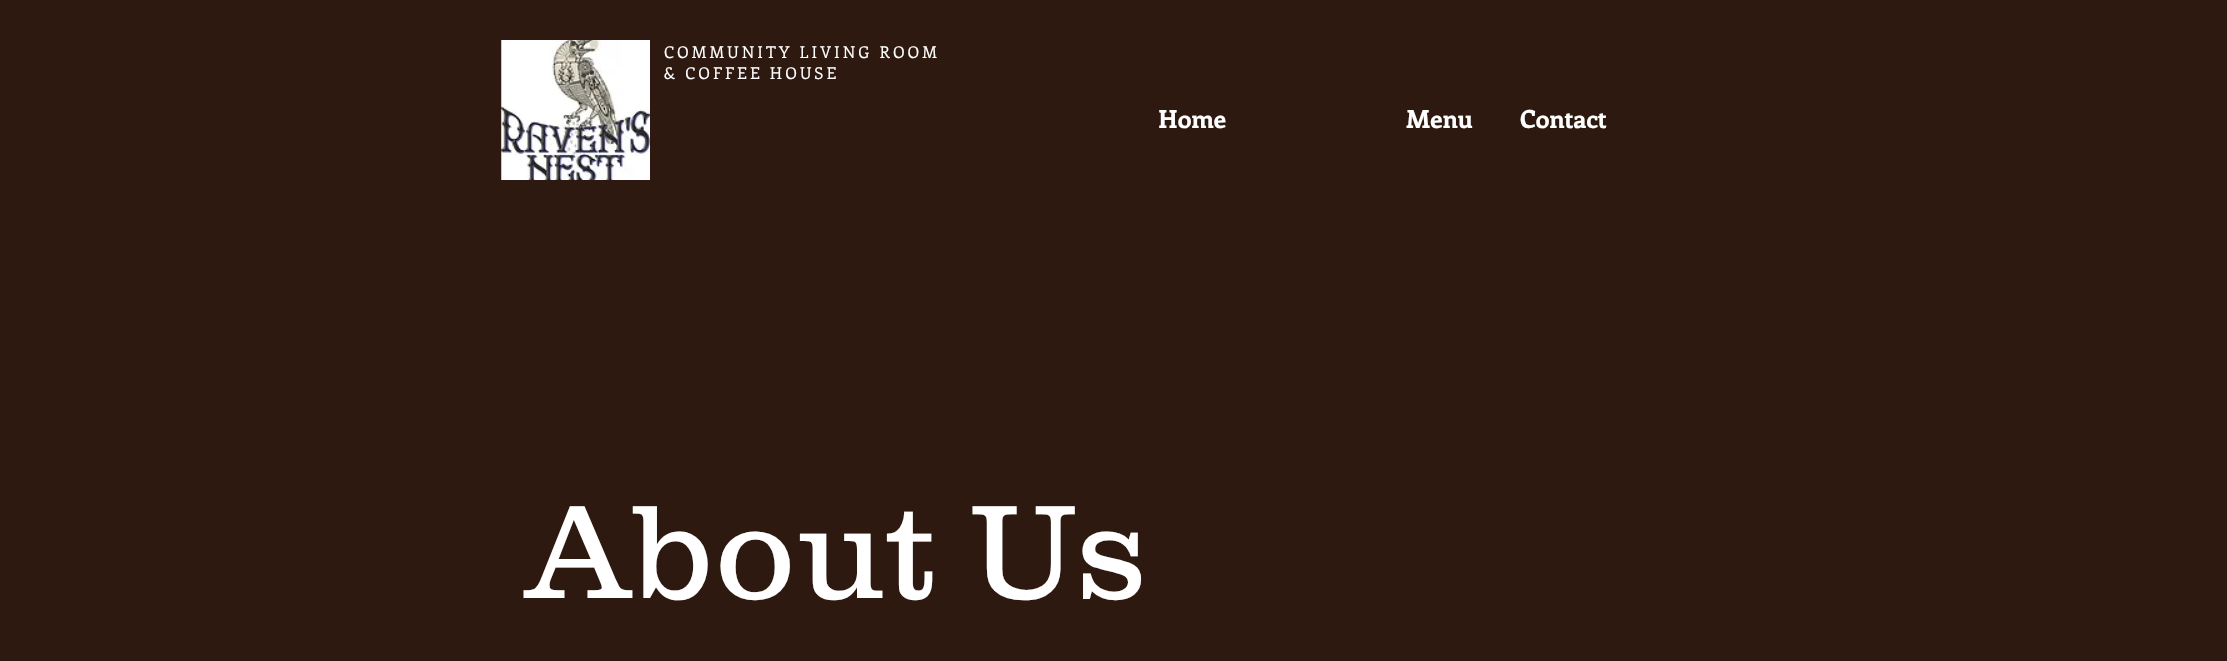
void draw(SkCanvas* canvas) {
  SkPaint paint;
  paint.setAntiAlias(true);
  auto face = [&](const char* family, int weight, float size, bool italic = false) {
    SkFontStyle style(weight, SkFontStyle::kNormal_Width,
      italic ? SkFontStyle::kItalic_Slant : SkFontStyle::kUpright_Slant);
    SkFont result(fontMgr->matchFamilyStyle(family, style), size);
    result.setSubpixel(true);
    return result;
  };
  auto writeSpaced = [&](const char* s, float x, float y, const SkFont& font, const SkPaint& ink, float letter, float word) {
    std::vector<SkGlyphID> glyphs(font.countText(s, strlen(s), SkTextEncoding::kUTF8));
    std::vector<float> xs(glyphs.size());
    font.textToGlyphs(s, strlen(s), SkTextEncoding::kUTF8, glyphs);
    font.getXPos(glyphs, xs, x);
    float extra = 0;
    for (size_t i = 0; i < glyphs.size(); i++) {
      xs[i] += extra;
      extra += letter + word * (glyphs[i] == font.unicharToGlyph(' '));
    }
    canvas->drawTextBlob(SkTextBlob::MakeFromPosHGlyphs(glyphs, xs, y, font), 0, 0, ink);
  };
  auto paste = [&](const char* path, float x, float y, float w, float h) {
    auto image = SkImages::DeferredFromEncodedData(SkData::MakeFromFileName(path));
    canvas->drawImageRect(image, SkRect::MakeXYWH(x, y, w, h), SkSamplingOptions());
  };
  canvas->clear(0xff2d1910);
  paste("img/1.png", 501, 40, 149, 140);
  auto f0 = face("Enriqueta", 400, 16.25f);
  paint.setColor(0xffffffff);
  writeSpaced("COMMUNITY LIVING ROOM", 664, 58, f0, paint, 3.1f, 0);
  writeSpaced("& COFFEE HOUSE", 664, 79, f0, paint, 3.1f, 0);
  auto f1 = face("Enriqueta", 700, 25);
  {
    const struct { const char* s; float x, y; } items[] = {
      {"Home", 1158, 128},
      {"Menu", 1406, 128},
      {"Contact", 1520, 128},
    };
    for (auto [s, x, y] : items) {
      canvas->drawString(s, x, y, f1, paint);
    }
  }
  auto f2 = face("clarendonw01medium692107", 300, 137.5f);
  canvas->drawString("About Us", 526, 598, f2, paint);
}
